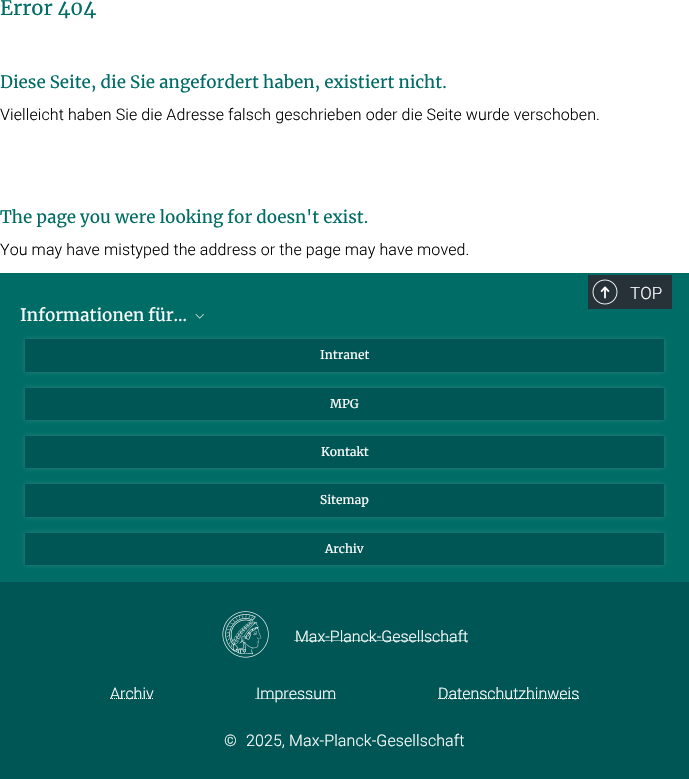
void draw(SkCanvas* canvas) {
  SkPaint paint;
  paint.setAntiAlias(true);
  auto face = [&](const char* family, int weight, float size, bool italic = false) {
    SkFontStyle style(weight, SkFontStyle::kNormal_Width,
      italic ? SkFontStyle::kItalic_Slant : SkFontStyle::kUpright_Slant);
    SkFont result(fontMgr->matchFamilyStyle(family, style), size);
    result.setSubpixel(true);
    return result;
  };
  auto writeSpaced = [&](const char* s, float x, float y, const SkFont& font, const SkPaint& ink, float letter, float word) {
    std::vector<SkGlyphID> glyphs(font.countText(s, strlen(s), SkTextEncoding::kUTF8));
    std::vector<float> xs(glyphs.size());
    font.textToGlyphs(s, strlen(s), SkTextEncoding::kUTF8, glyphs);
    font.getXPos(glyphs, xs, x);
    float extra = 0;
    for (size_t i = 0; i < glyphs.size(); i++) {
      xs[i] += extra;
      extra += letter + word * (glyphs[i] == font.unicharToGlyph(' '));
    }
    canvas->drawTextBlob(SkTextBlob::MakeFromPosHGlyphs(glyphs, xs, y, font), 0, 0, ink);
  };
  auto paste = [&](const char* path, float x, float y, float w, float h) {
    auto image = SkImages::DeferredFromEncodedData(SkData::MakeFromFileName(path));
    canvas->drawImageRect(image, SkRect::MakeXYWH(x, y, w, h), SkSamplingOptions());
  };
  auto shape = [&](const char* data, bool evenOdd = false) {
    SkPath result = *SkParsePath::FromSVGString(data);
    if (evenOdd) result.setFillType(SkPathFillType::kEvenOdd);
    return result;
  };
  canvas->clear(0xffffffff);
  paint.setColor(0xff006c66);
  canvas->drawRect(SkRect::MakeXYWH(0, 273, 689, 309), paint);
  paint.setColor(0xff263238);
  canvas->drawRect(SkRect::MakeXYWH(588, 275, 84, 34), paint);
  paste("img/1.png", 600, 286, 10, 13);
  paste("img/2.png", 592, 279, 26, 26);
  paste("img/3.png", 195, 314, 9, 5);
  paint.setColor(0x26ffffff);
  paint.setMaskFilter(SkMaskFilter::MakeBlur(kNormal_SkBlurStyle, 2.5f));
  canvas->drawRect(SkRect::MakeXYWH(25, 339, 639, 33), paint);
  paint.setMaskFilter(nullptr);
  paint.setColor(0xff005555);
  canvas->drawRect(SkRect::MakeXYWH(25, 339, 639, 33), paint);
  paint.setColor(0x26ffffff);
  paint.setMaskFilter(SkMaskFilter::MakeBlur(kNormal_SkBlurStyle, 2.5f));
  canvas->drawRect(SkRect::MakeXYWH(25, 388, 639, 32), paint);
  paint.setMaskFilter(nullptr);
  paint.setColor(0xff005555);
  canvas->drawRect(SkRect::MakeXYWH(25, 388, 639, 32), paint);
  paint.setColor(0x26ffffff);
  paint.setMaskFilter(SkMaskFilter::MakeBlur(kNormal_SkBlurStyle, 2.5f));
  canvas->drawRect(SkRect::MakeXYWH(25, 436, 639, 32), paint);
  paint.setMaskFilter(nullptr);
  paint.setColor(0xff005555);
  canvas->drawRect(SkRect::MakeXYWH(25, 436, 639, 32), paint);
  paint.setColor(0x26ffffff);
  paint.setMaskFilter(SkMaskFilter::MakeBlur(kNormal_SkBlurStyle, 2.5f));
  canvas->drawRect(SkRect::MakeXYWH(25, 484, 639, 33), paint);
  paint.setMaskFilter(nullptr);
  paint.setColor(0xff005555);
  canvas->drawRect(SkRect::MakeXYWH(25, 484, 639, 33), paint);
  paint.setColor(0x26ffffff);
  paint.setMaskFilter(SkMaskFilter::MakeBlur(kNormal_SkBlurStyle, 2.5f));
  canvas->drawRect(SkRect::MakeXYWH(25, 533, 639, 32), paint);
  paint.setMaskFilter(nullptr);
  paint.setColor(0xff005555);
  canvas->drawRect(SkRect::MakeXYWH(25, 533, 639, 32), paint);
  canvas->drawRect(SkRect::MakeXYWH(0, 582, 689, 197), paint);
  paste("img/4.png", 222, 611, 47, 47);
  paint.setStroke(true);
  paint.setStrokeWidth(1);
  paint.setColor(0xffffffff);
  paint.setPathEffect(SkDashPathEffect::Make({{1, 1}}, 0));
  canvas->drawPath(shape("M294.5 640.5H467.5"), paint);
  paint.setPathEffect(nullptr);
  paint.setPathEffect(SkDashPathEffect::Make({{1, 1}}, 0));
  canvas->drawPath(shape("M110 698.5H153.5"), paint);
  paint.setPathEffect(nullptr);
  paint.setPathEffect(SkDashPathEffect::Make({{1, 1}}, 0));
  canvas->drawPath(shape("M255.5 698.5H336"), paint);
  paint.setPathEffect(nullptr);
  paint.setPathEffect(SkDashPathEffect::Make({{1, 1}}, 0));
  canvas->drawPath(shape("M438 698.5H579"), paint);
  paint.setPathEffect(nullptr);
  auto f0 = face("Merriweather", 400, 20);
  paint.setStroke(false);
  paint.setColor(0xff006c66);
  canvas->drawString("Error 404", 0, 15, f0, paint);
  auto f1 = face("Merriweather", 400, 17);
  canvas->drawString("Diese Seite, die Sie angefordert haben, existiert nicht.", 0, 88, f1, paint);
  auto f2 = face("Roboto", 300, 16);
  paint.setColor(0xff000000);
  writeSpaced("Vielleicht haben Sie die Adresse falsch geschrieben oder die Seite wurde verschoben.", 0, 120, f2, paint, 0.1f, 0);
  paint.setColor(0xff006c66);
  canvas->drawString("The page you were looking for doesn't exist.", 0, 223, f1, paint);
  paint.setColor(0xff000000);
  writeSpaced("You may have mistyped the address or the page may have moved.", 0, 255, f2, paint, 0.1f, 0);
  auto f3 = face("Roboto", 300, 17);
  paint.setColor(0xffffffff);
  canvas->drawString("TOP", 630, 299, f3, paint);
  canvas->drawString("Informationen für...", 20, 321, f1, paint);
  auto f4 = face("Merriweather", 400, 12);
  {
    const struct { const char* s; float x, y; } items[] = {
      {"Intranet", 320, 359},
      {"MPG", 330, 408},
      {"Kontakt", 321, 456},
      {"Sitemap", 320, 504},
      {"Archiv", 325, 553},
    };
    for (auto [s, x, y] : items) {
      canvas->drawString(s, x, y, f4, paint);
    }
  }
  {
    const struct { const char* s; float x, y; } items[] = {
      {"Max-Planck-Gesellschaft", 295, 642},
      {"Archiv", 110, 699},
      {"Impressum", 256, 699},
      {"Datenschutzhinweis", 438, 699},
      {"©", 224, 746},
    };
    for (auto [s, x, y] : items) {
      canvas->drawString(s, x, y, f2, paint);
    }
  }
  writeSpaced("2025, Max-Planck-Gesellschaft", 246, 746, f2, paint, 0.1f, 0);
}
